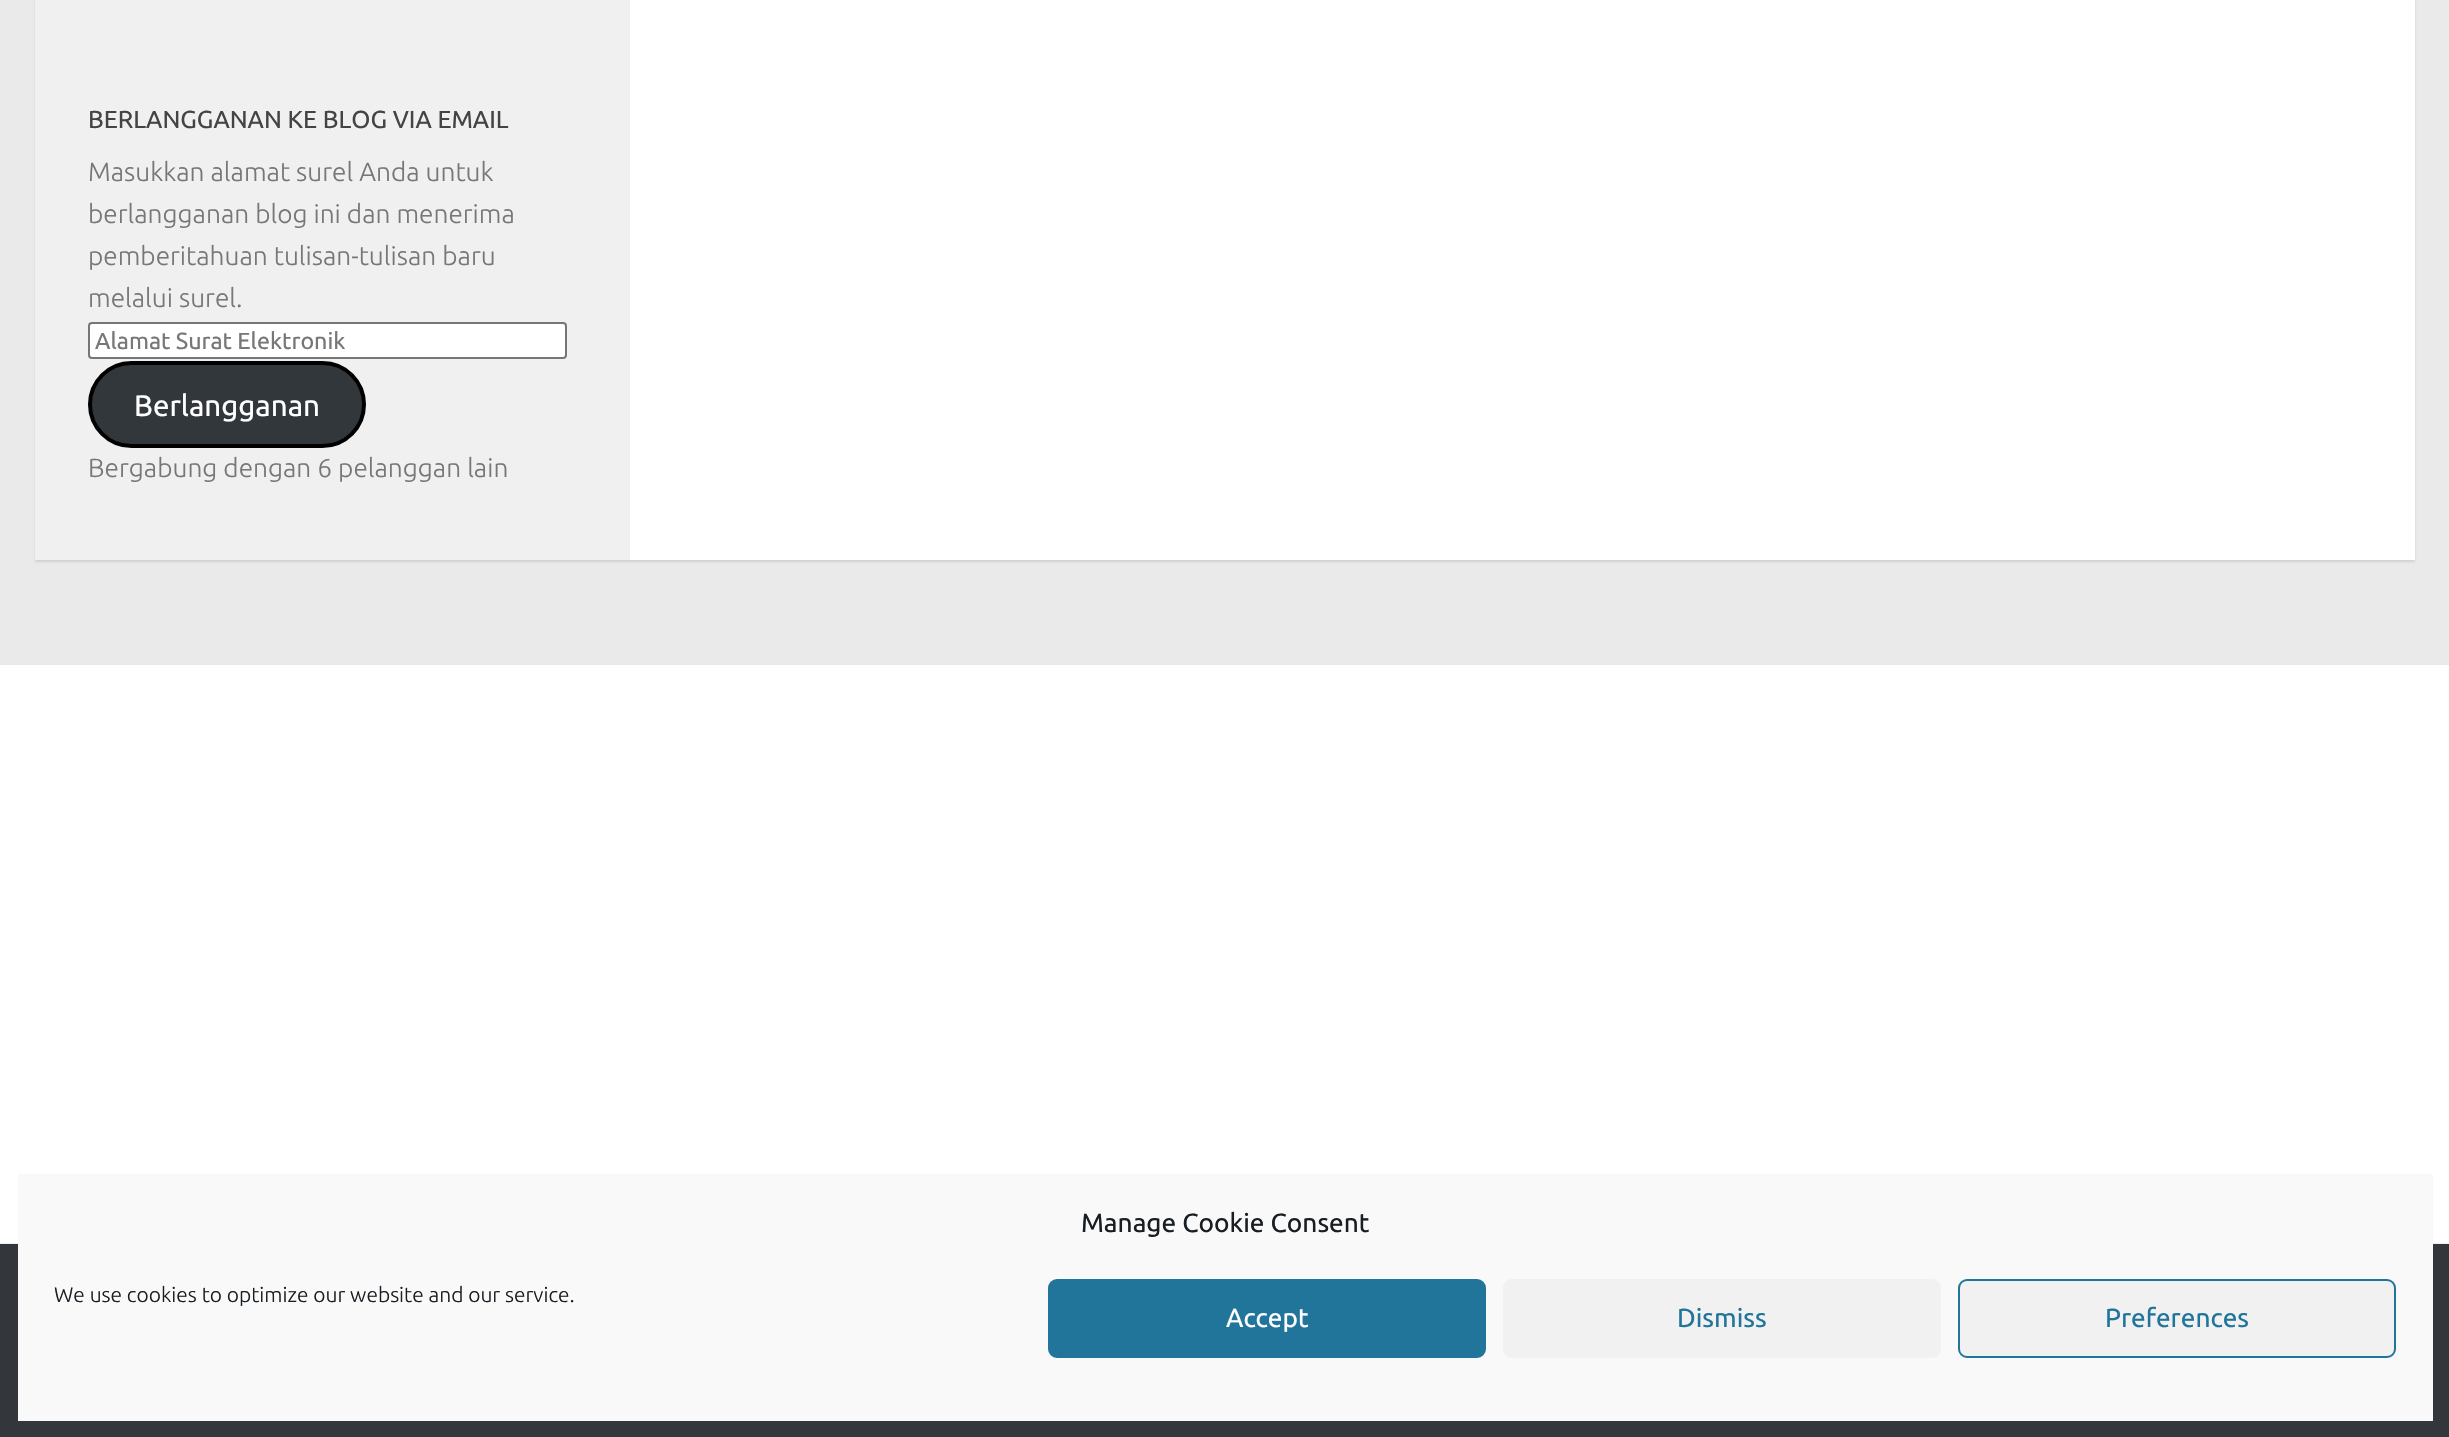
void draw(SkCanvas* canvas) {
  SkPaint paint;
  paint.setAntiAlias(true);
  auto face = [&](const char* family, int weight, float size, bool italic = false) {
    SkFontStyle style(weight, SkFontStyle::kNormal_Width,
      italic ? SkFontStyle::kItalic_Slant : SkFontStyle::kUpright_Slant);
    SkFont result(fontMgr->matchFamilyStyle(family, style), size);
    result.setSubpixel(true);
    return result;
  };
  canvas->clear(0xffeaeaea);
  paint.setColor(0x1a000000);
  paint.setMaskFilter(SkMaskFilter::MakeBlur(kNormal_SkBlurStyle, 1));
  canvas->drawRect(SkRect::MakeXYWH(35, -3, 2380, 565), paint);
  paint.setMaskFilter(nullptr);
  paint.setColor(0xffffffff);
  canvas->drawRect(SkRect::MakeXYWH(630, 0, 1785, 560), paint);
  paint.setColor(0xfff0f0f0);
  canvas->drawRect(SkRect::MakeXYWH(35, 0, 595, 560), paint);
  paint.setColor(0xffffffff);
  canvas->drawRoundRect(SkRect::MakeXYWH(89, 323, 477, 35), 3, 3, paint);
  paint.setStroke(true);
  paint.setStrokeWidth(2);
  paint.setColor(0xff767676);
  canvas->drawRoundRect(SkRect::MakeXYWH(89, 323, 477, 35), 3, 3, paint);
  paint.setStroke(false);
  paint.setColor(0xff32373c);
  canvas->drawRoundRect(SkRect::MakeXYWH(90, 363, 274, 83), 41.5f, 41.5f, paint);
  paint.setStroke(true);
  paint.setStrokeWidth(4);
  paint.setColor(0xff000000);
  canvas->drawRoundRect(SkRect::MakeXYWH(90, 363, 274, 83), 41.5f, 41.5f, paint);
  paint.setStroke(false);
  {
    const struct { float x, y, w, h; SkColor color; } items[] = {
      {0, 665, 2449, 578, 0xffffffff},
      {0, 1243, 2449, 1, 0xffeeeeee},
      {0, 1244, 2449, 193, 0xff33363b},
      {18, 1174, 2415, 247, 0xfff9f9f9},
    };
    for (auto [x, y, w, h, color] : items) {
      paint.setColor(color);
      canvas->drawRect(SkRect::MakeXYWH(x, y, w, h), paint);
    }
  }
  paint.setColor(0xff21759b);
  canvas->drawRoundRect(SkRect::MakeXYWH(1049, 1280, 436, 77), 8, 8, paint);
  paint.setStroke(true);
  paint.setStrokeWidth(2);
  canvas->drawRoundRect(SkRect::MakeXYWH(1049, 1280, 436, 77), 8, 8, paint);
  paint.setStroke(false);
  paint.setColor(0xfff1f1f1);
  canvas->drawRoundRect(SkRect::MakeXYWH(1503, 1279, 438, 79), 9, 9, paint);
  canvas->drawRoundRect(SkRect::MakeXYWH(1959, 1280, 436, 77), 8, 8, paint);
  paint.setStroke(true);
  paint.setColor(0xff21759b);
  canvas->drawRoundRect(SkRect::MakeXYWH(1959, 1280, 436, 77), 8, 8, paint);
  auto f0 = face("Ubuntu", 400, 24.6f);
  paint.setStroke(false);
  paint.setColor(0xff444444);
  canvas->drawString("BERLANGGANAN KE BLOG VIA EMAIL", 88, 128, f0, paint);
  auto f1 = face("Ubuntu", 300, 26.25f);
  paint.setColor(0xff777777);
  {
    const struct { const char* s; float x, y; } items[] = {
      {"Masukkan alamat surel Anda untuk", 88, 181},
      {"berlangganan blog ini dan menerima", 88, 223},
      {"pemberitahuan tulisan-tulisan baru", 88, 265},
      {"melalui surel.", 88, 307},
    };
    for (auto [s, x, y] : items) {
      canvas->drawString(s, x, y, f1, paint);
    }
  }
  auto f2 = face("Ubuntu", 400, 23.25f);
  canvas->drawString("Alamat Surat Elektronik", 95, 349, f2, paint);
  auto f3 = face("Ubuntu", 400, 29.5f);
  paint.setColor(0xffffffff);
  canvas->drawString("Berlangganan", 134, 416, f3, paint);
  paint.setColor(0xff777777);
  canvas->drawString("Bergabung dengan 6 pelanggan lain", 88, 477, f1, paint);
  auto f4 = face("Ubuntu", 400, 26.25f);
  paint.setColor(0xff191e23);
  canvas->drawString("Manage Cookie Consent", 1081, 1232, f4, paint);
  auto f5 = face("Ubuntu", 300, 21);
  canvas->drawString("We use cookies to optimize our website and our service.", 54, 1302, f5, paint);
  paint.setColor(0xffffffff);
  canvas->drawString("Accept", 1226, 1327, f4, paint);
  paint.setColor(0xff21759b);
  canvas->drawString("Dismiss", 1677, 1327, f4, paint);
  canvas->drawString("Preferences", 2105, 1327, f4, paint);
}
